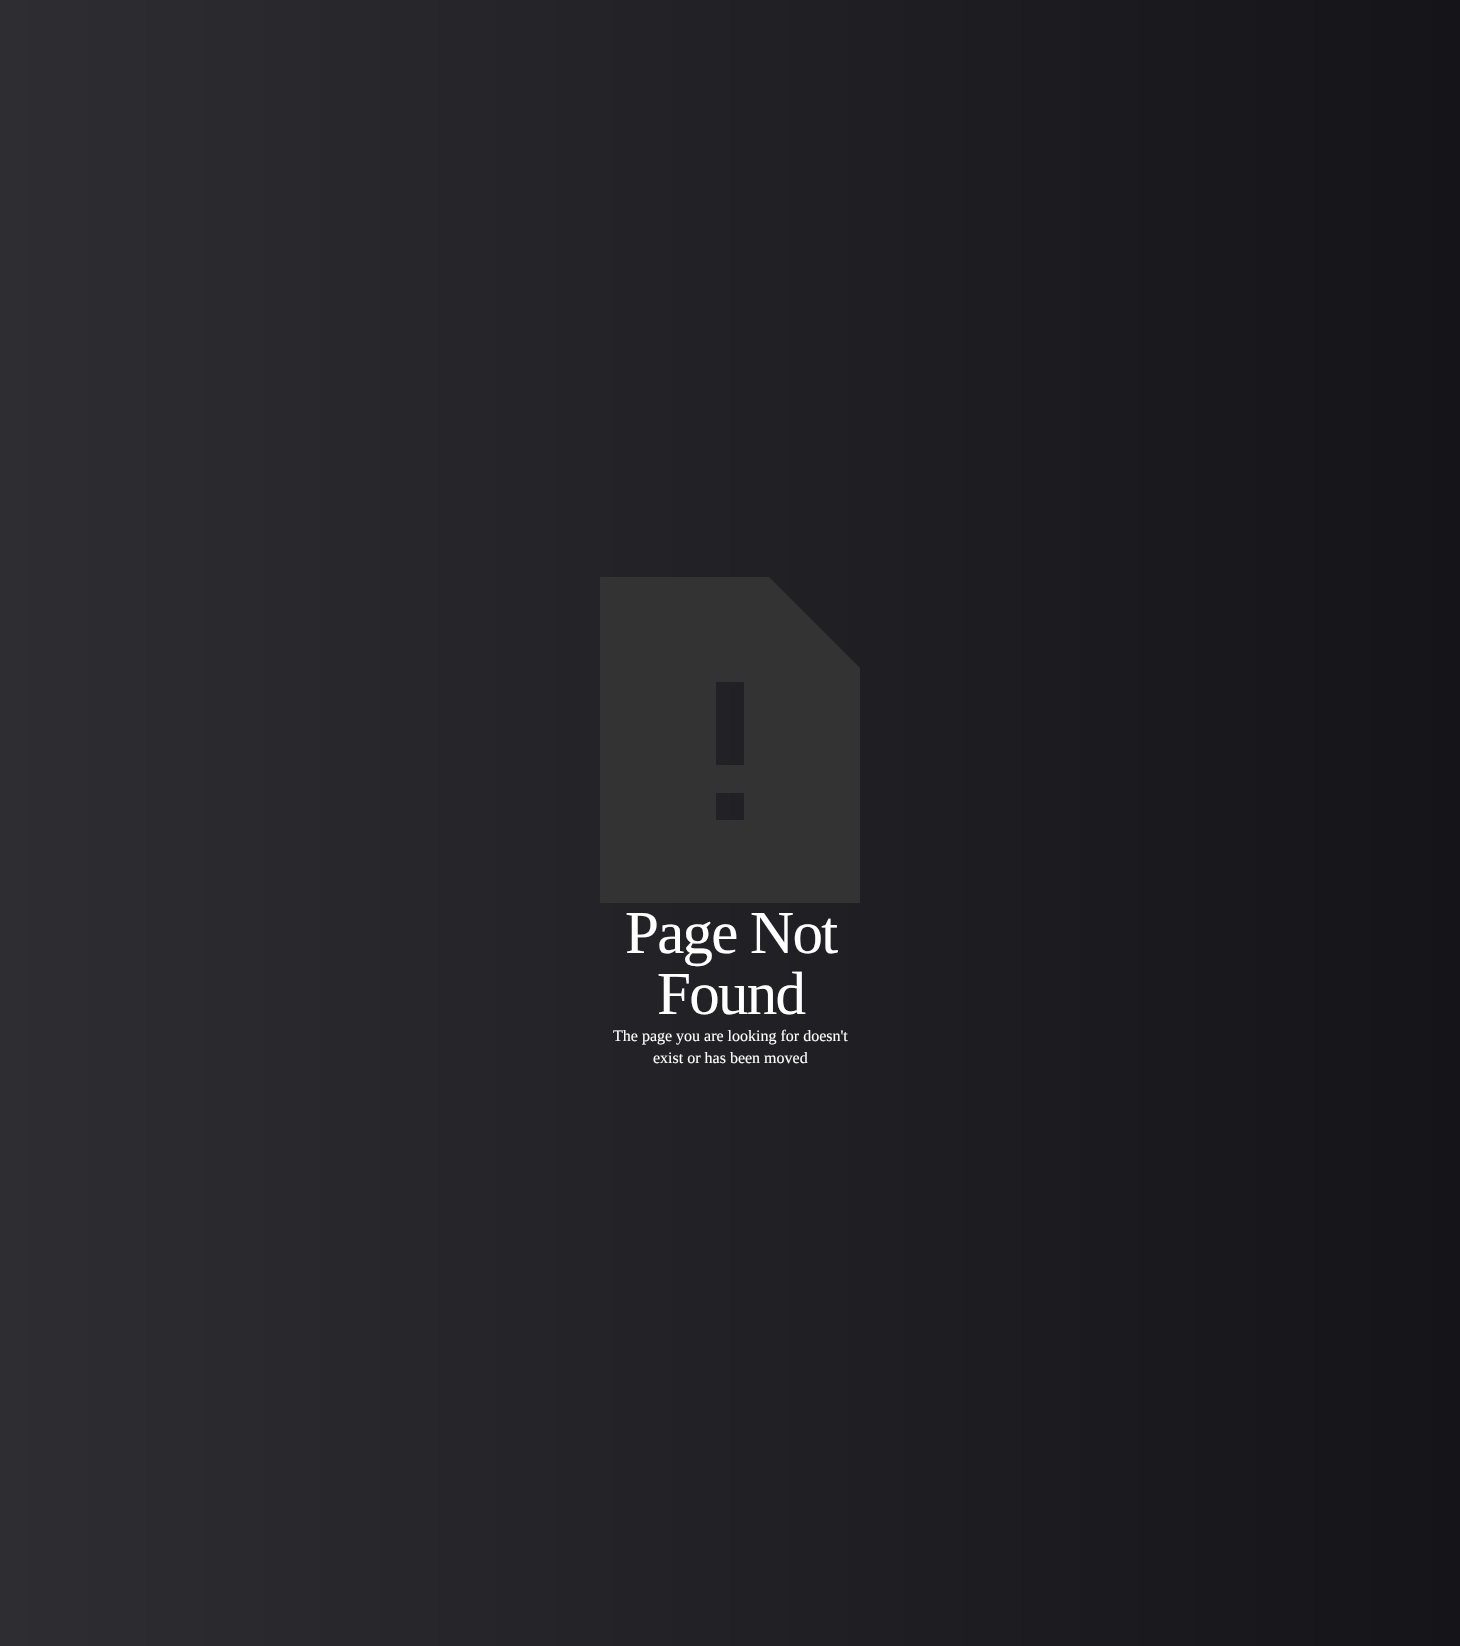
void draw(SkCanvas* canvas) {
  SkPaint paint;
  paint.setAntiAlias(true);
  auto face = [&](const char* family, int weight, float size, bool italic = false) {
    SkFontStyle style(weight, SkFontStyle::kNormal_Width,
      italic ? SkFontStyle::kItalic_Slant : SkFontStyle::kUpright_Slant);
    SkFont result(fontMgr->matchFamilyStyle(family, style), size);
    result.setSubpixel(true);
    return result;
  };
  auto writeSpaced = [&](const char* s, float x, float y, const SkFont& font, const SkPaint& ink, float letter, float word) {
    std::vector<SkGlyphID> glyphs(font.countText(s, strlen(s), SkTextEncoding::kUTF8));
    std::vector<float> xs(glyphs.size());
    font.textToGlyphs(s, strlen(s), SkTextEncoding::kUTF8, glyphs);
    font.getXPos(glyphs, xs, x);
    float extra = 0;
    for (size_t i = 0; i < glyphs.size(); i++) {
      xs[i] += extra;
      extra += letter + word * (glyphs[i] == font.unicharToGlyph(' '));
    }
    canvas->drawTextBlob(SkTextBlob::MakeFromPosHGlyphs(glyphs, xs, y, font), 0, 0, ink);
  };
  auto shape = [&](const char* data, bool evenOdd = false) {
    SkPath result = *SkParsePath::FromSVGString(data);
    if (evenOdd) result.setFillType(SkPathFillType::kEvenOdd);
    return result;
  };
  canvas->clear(0xffffffff);
  {
    const SkColor colors[] = {0xff2d2d32, 0xff141419};
    const float stops[] = {0, 1};
    const SkPoint ends[] = {{0, 823}, {1460, 823}};
    paint.setShader(SkGradientShader::MakeLinear(ends, colors, stops, 2, SkTileMode::kClamp));
    paint.setAlpha(255);
  }
  canvas->drawRect(SkRect::MakeXYWH(0, 0, 1460, 1646), paint);
  paint.setShader(nullptr);
  paint.setColor(0xff333333);
  canvas->drawPath(shape("M600 577H769L860 668V903H600ZM716 682H744V765H716ZM716 793H744V820H716Z", true), paint);
  auto f0 = face("Liberation Serif", 400, 61);
  paint.setColor(0xffffffff);
  writeSpaced("Page Not", 625, 953, f0, paint, -1.75f, 0);
  writeSpaced("Found", 657, 1014, f0, paint, -1.75f, 0);
  auto f1 = face("Liberation Serif", 400, 16);
  canvas->drawString("The page you are looking for doesn't", 613, 1041, f1, paint);
  canvas->drawString("exist or has been moved", 653, 1063, f1, paint);
}
